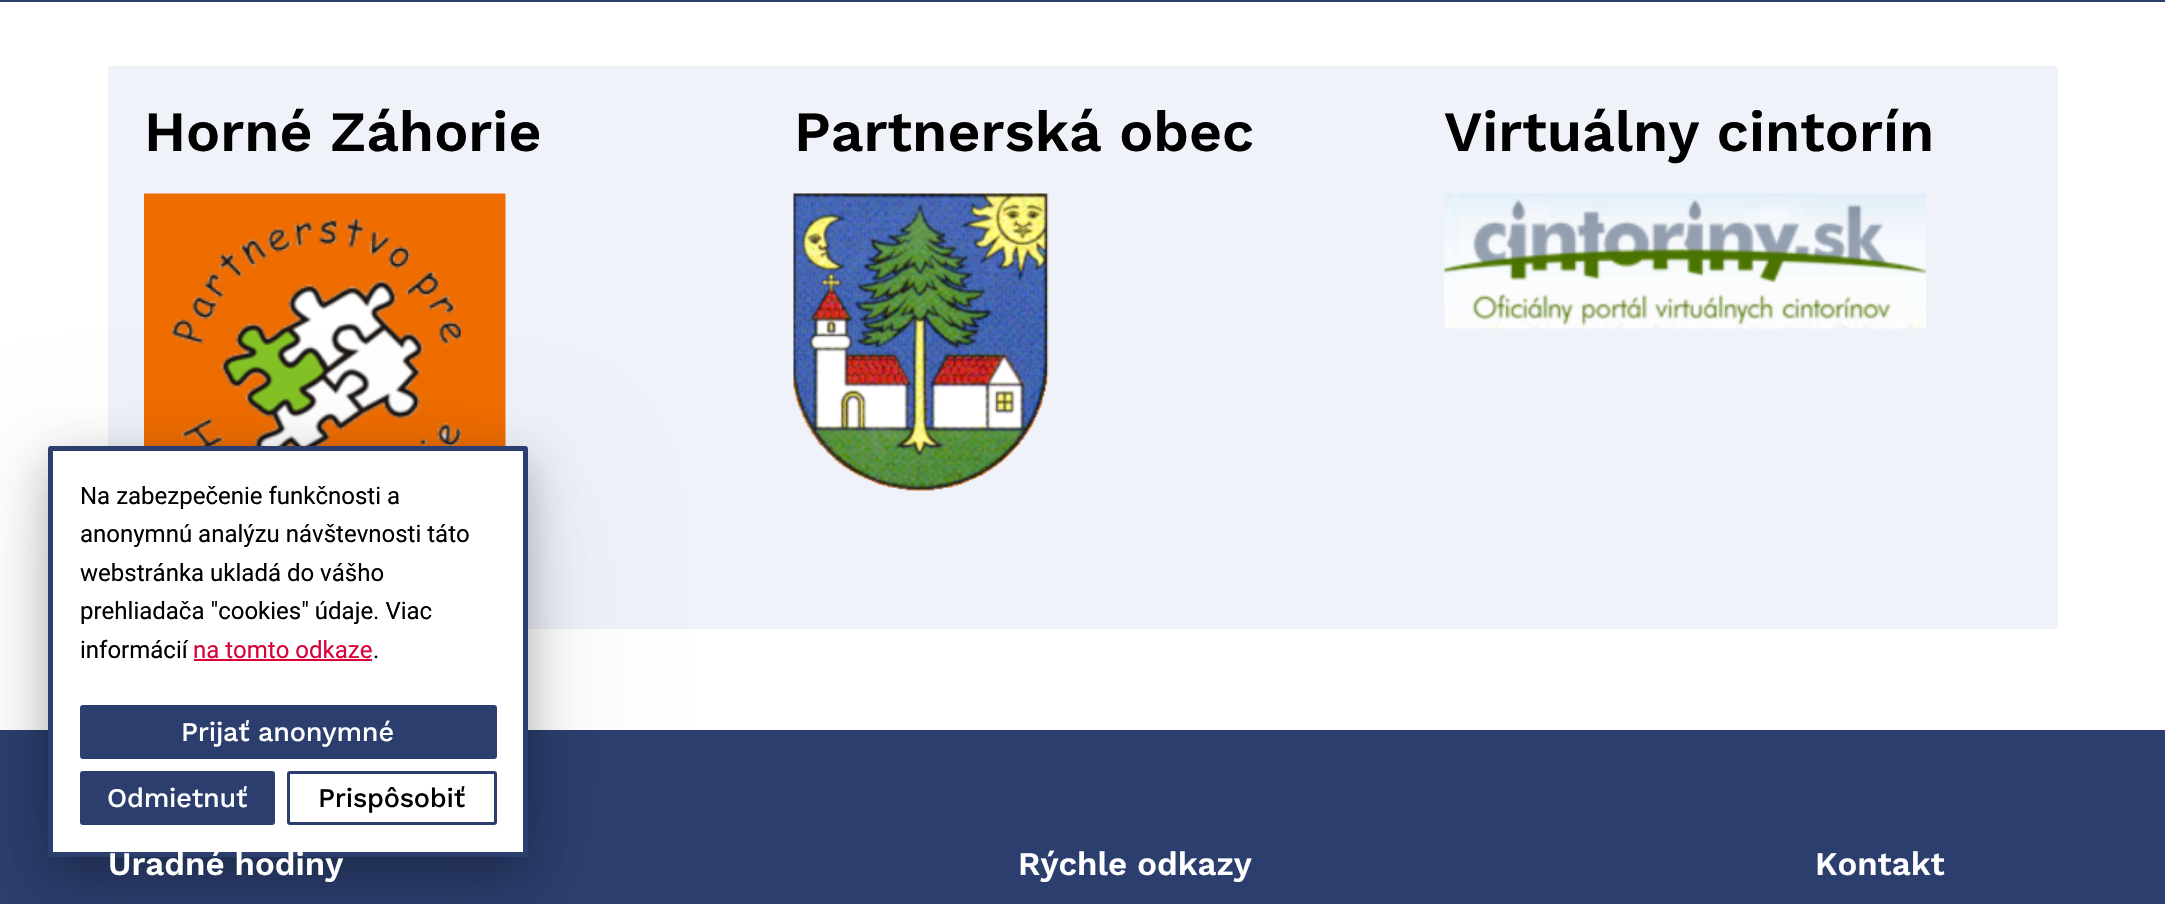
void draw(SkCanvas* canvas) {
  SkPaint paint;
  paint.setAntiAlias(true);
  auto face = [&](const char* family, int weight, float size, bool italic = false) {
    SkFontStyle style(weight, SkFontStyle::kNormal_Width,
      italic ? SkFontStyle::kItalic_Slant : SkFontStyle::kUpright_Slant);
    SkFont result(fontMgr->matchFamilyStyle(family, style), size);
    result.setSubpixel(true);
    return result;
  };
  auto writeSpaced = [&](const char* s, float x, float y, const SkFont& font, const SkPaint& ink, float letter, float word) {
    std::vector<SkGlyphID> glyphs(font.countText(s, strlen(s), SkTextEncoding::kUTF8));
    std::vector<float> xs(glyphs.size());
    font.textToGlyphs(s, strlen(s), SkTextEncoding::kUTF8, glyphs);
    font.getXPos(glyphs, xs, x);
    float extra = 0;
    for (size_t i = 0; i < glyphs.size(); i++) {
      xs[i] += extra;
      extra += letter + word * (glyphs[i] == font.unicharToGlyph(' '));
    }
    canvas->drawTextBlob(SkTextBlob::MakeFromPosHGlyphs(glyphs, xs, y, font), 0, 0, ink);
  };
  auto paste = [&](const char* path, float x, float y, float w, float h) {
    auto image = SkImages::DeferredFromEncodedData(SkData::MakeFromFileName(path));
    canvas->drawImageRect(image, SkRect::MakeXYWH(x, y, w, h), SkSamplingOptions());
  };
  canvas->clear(0xffffffff);
  paint.setColor(0xff2b3e6e);
  canvas->drawRect(SkRect::MakeXYWH(0, 0, 2165, 2), paint);
  paint.setColor(0xfff0f2fa);
  canvas->drawRoundRect(SkRect::MakeXYWH(108, 66, 1950, 563), 3, 3, paint);
  paste("img/1.png", 144, 193, 362, 253);
  paste("img/2.png", 793, 193, 256, 298);
  paste("img/3.png", 1444, 193, 482, 136);
  paint.setColor(0xff2b3e6e);
  canvas->drawRect(SkRect::MakeXYWH(0, 730, 2165, 174), paint);
  paint.setColor(0x0d000000);
  paint.setMaskFilter(SkMaskFilter::MakeBlur(kNormal_SkBlurStyle, 67.5f));
  canvas->drawRoundRect(SkRect::MakeXYWH(48, 491, 480, 411), 3, 3, paint);
  paint.setMaskFilter(nullptr);
  paint.setMaskFilter(SkMaskFilter::MakeBlur(kNormal_SkBlurStyle, 45));
  canvas->drawRoundRect(SkRect::MakeXYWH(48, 476, 480, 411), 3, 3, paint);
  paint.setMaskFilter(nullptr);
  paint.setColor(0x40000000);
  paint.setMaskFilter(SkMaskFilter::MakeBlur(kNormal_SkBlurStyle, 22.5f));
  canvas->drawRoundRect(SkRect::MakeXYWH(48, 461, 480, 411), 3, 3, paint);
  paint.setMaskFilter(nullptr);
  paint.setColor(0xffffffff);
  canvas->drawRoundRect(SkRect::MakeXYWH(50.5f, 448.5f, 475, 406), 0.5f, 0.5f, paint);
  paint.setStroke(true);
  paint.setStrokeWidth(5);
  paint.setColor(0xff2b3e6e);
  canvas->drawRoundRect(SkRect::MakeXYWH(50.5f, 448.5f, 475, 406), 0.5f, 0.5f, paint);
  paint.setStroke(false);
  paint.setColor(0xffda0038);
  canvas->drawRect(SkRect::MakeXYWH(194, 659, 178, 2), paint);
  paint.setColor(0xff2b3e6e);
  canvas->drawRoundRect(SkRect::MakeXYWH(81.5f, 706.5f, 414, 51), 1.5f, 1.5f, paint);
  paint.setStroke(true);
  paint.setStrokeWidth(3);
  canvas->drawRoundRect(SkRect::MakeXYWH(81.5f, 706.5f, 414, 51), 1.5f, 1.5f, paint);
  paint.setStroke(false);
  canvas->drawRoundRect(SkRect::MakeXYWH(81.5f, 772.5f, 192, 51), 1.5f, 1.5f, paint);
  paint.setStroke(true);
  canvas->drawRoundRect(SkRect::MakeXYWH(81.5f, 772.5f, 192, 51), 1.5f, 1.5f, paint);
  canvas->drawRoundRect(SkRect::MakeXYWH(288.5f, 772.5f, 207, 51), 1.5f, 1.5f, paint);
  auto f0 = face("Work Sans", 600, 57);
  paint.setStroke(false);
  paint.setColor(0xff000000);
  {
    const struct { const char* s; float x, y; } items[] = {
      {"Horné Záhorie", 144, 151},
      {"Partnerská obec", 794, 151},
      {"Virtuálny cintorín", 1444, 151},
    };
    for (auto [s, x, y] : items) {
      canvas->drawString(s, x, y, f0, paint);
    }
  }
  auto f1 = face("Work Sans", 600, 33);
  paint.setColor(0xffffffff);
  {
    const struct { const char* s; float x, y; } items[] = {
      {"Úradné hodiny", 108, 875},
      {"Rýchle odkazy", 1018, 875},
      {"Kontakt", 1815, 875},
    };
    for (auto [s, x, y] : items) {
      canvas->drawString(s, x, y, f1, paint);
    }
  }
  auto f2 = face("Roboto", 400, 24);
  paint.setColor(0xff000000);
  {
    const struct { const char* s; float x, y; } items[] = {
      {"Na zabezpečenie funkčnosti a", 80, 504},
      {"anonymnú analýzu návštevnosti táto", 80, 542},
      {"webstránka ukladá do vášho", 80, 581},
      {"prehliadača \"cookies\" údaje. Viac", 80, 619},
      {"informácií", 80, 658},
    };
    for (auto [s, x, y] : items) {
      canvas->drawString(s, x, y, f2, paint);
    }
  }
  paint.setColor(0xffda0038);
  canvas->drawString("na tomto odkaze", 193, 658, f2, paint);
  paint.setColor(0xff000000);
  canvas->drawString(".", 373, 658, f2, paint);
  auto f3 = face("Work Sans", 500, 27);
  paint.setColor(0xffffffff);
  writeSpaced("Prijať anonymné", 181, 741, f3, paint, -0.2f, 0);
  writeSpaced("Odmietnuť", 107, 807, f3, paint, -0.2f, 0);
  paint.setColor(0xff000000);
  writeSpaced("Prispôsobiť", 318, 807, f3, paint, -0.2f, 0);
}
